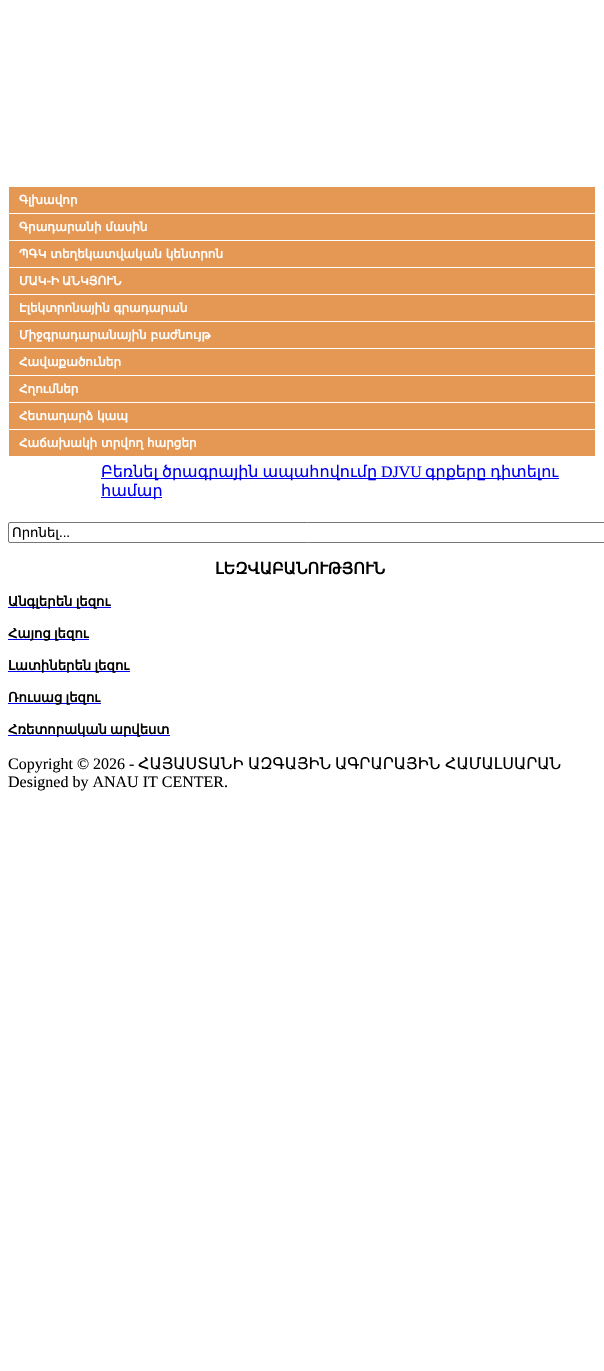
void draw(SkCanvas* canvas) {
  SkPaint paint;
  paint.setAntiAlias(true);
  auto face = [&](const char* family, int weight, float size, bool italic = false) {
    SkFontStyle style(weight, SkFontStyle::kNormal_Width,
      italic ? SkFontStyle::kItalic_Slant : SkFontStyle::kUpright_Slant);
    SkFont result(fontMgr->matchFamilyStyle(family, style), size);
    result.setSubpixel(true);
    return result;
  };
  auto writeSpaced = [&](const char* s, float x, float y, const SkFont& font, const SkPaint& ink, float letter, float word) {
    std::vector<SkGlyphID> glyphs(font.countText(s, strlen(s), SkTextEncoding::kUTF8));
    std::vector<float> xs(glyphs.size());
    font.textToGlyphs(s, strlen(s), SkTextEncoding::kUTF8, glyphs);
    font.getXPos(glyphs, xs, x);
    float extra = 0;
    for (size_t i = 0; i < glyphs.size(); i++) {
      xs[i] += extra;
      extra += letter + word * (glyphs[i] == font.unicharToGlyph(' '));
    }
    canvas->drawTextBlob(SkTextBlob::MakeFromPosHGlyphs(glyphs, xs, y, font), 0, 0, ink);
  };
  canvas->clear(0xffffffff);
  {
    const struct { float x, y, w, h; SkColor color; } items[] = {
      {9, 187, 586, 26, 0xffe59754},
      {9, 214, 586, 26, 0xffe59754},
      {9, 241, 586, 26, 0xffe59754},
      {9, 268, 586, 26, 0xffe59754},
      {9, 295, 586, 26, 0xffe59754},
      {9, 322, 586, 26, 0xffe59754},
      {9, 349, 586, 26, 0xffe59754},
      {9, 376, 586, 26, 0xffe59754},
      {9, 403, 586, 26, 0xffe59754},
      {9, 430, 586, 26, 0xffe59754},
      {101, 478, 458, 1, 0xff0000ee},
      {101, 497, 61, 1, 0xff0000ee},
    };
    for (auto [x, y, w, h, color] : items) {
      paint.setColor(color);
      canvas->drawRect(SkRect::MakeXYWH(x, y, w, h), paint);
    }
  }
  paint.setStroke(true);
  paint.setStrokeWidth(1);
  paint.setColor(0xff767676);
  canvas->drawRoundRect(SkRect::MakeXYWH(8.5f, 522.5f, 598, 20), 1.5f, 1.5f, paint);
  paint.setStroke(false);
  {
    const struct { float x, y, w, h; SkColor color; } items[] = {
      {8, 607, 103, 1, 0xff0000ee},
      {8, 639, 81, 1, 0xff0000ee},
      {8, 671, 122, 1, 0xff0000ee},
      {8, 703, 93, 1, 0xff0000ee},
      {8, 735, 162, 1, 0xff0000ee},
    };
    for (auto [x, y, w, h, color] : items) {
      paint.setColor(color);
      canvas->drawRect(SkRect::MakeXYWH(x, y, w, h), paint);
    }
  }
  auto f0 = face("DejaVu Sans", 700, 12);
  paint.setColor(0xffffffff);
  {
    const struct { const char* s; float x, y; } items[] = {
      {"Գլխավոր", 19, 204},
      {"Գրադարանի մասին", 19, 231},
      {"ՊԳԿ տեղեկատվական կենտրոն", 19, 258},
      {"ՄԱԿ-Ի", 19, 285},
      {"ԱՆԿՅՈՒՆ", 62, 285},
      {"Էլեկտրոնային գրադարան", 19, 312},
      {"Միջգրադարանային բաժնույթ", 19, 339},
      {"Հավաքածուներ", 19, 366},
      {"Հղումներ", 19, 393},
      {"Հետադարձ կապ", 19, 420},
      {"Հաճախակի տրվող հարցեր", 19, 447},
    };
    for (auto [s, x, y] : items) {
      canvas->drawString(s, x, y, f0, paint);
    }
  }
  auto f1 = face("DejaVu Sans", 400, 16);
  paint.setColor(0xff0000ee);
  writeSpaced("Բեռնել ծրագրային ապահովումը", 101, 477, f1, paint, 0, -1);
  auto f2 = face("Liberation Serif", 400, 16);
  canvas->drawString("DJVU", 381, 477, f2, paint);
  writeSpaced("գրքերը դիտելու", 425, 477, f1, paint, 0, -1);
  canvas->drawString("համար", 101, 496, f1, paint);
  auto f3 = face("DejaVu Sans", 400, 13.25f);
  paint.setColor(0xff000000);
  canvas->drawString("Որոնել", 12, 537, f3, paint);
  auto f4 = face("Liberation Sans", 400, 13.25f);
  canvas->drawString("...", 59, 537, f4, paint);
  auto f5 = face("DejaVu Sans", 700, 16);
  canvas->drawString("ԼԵԶՎԱԲԱՆՈՒԹՅՈՒՆ", 215, 574, f5, paint);
  auto f6 = face("DejaVu Sans", 700, 13.25f);
  {
    const struct { const char* s; float x, y; } items[] = {
      {"Անգլերեն լեզու", 8, 606},
      {"Հայոց լեզու", 8, 638},
      {"Լատիներեն լեզու", 8, 670},
      {"Ռուսաց լեզու", 8, 702},
      {"Հռետորական արվեստ", 8, 734},
    };
    for (auto [s, x, y] : items) {
      writeSpaced(s, x, y, f6, paint, 0, -1);
    }
  }
  canvas->drawString("Copyright © 2026 -", 8, 769, f2, paint);
  {
    const struct { const char* s; float x, y; } items[] = {
      {"ՀԱՅԱՍՏԱՆԻ", 138, 769},
      {"ԱԶԳԱՅԻՆ", 248, 769},
      {"ԱԳՐԱՐԱՅԻՆ", 335, 769},
      {"ՀԱՄԱԼՍԱՐԱՆ", 445, 769},
    };
    for (auto [s, x, y] : items) {
      canvas->drawString(s, x, y, f1, paint);
    }
  }
  canvas->drawString("Designed by ANAU IT CENTER.", 8, 787, f2, paint);
}
